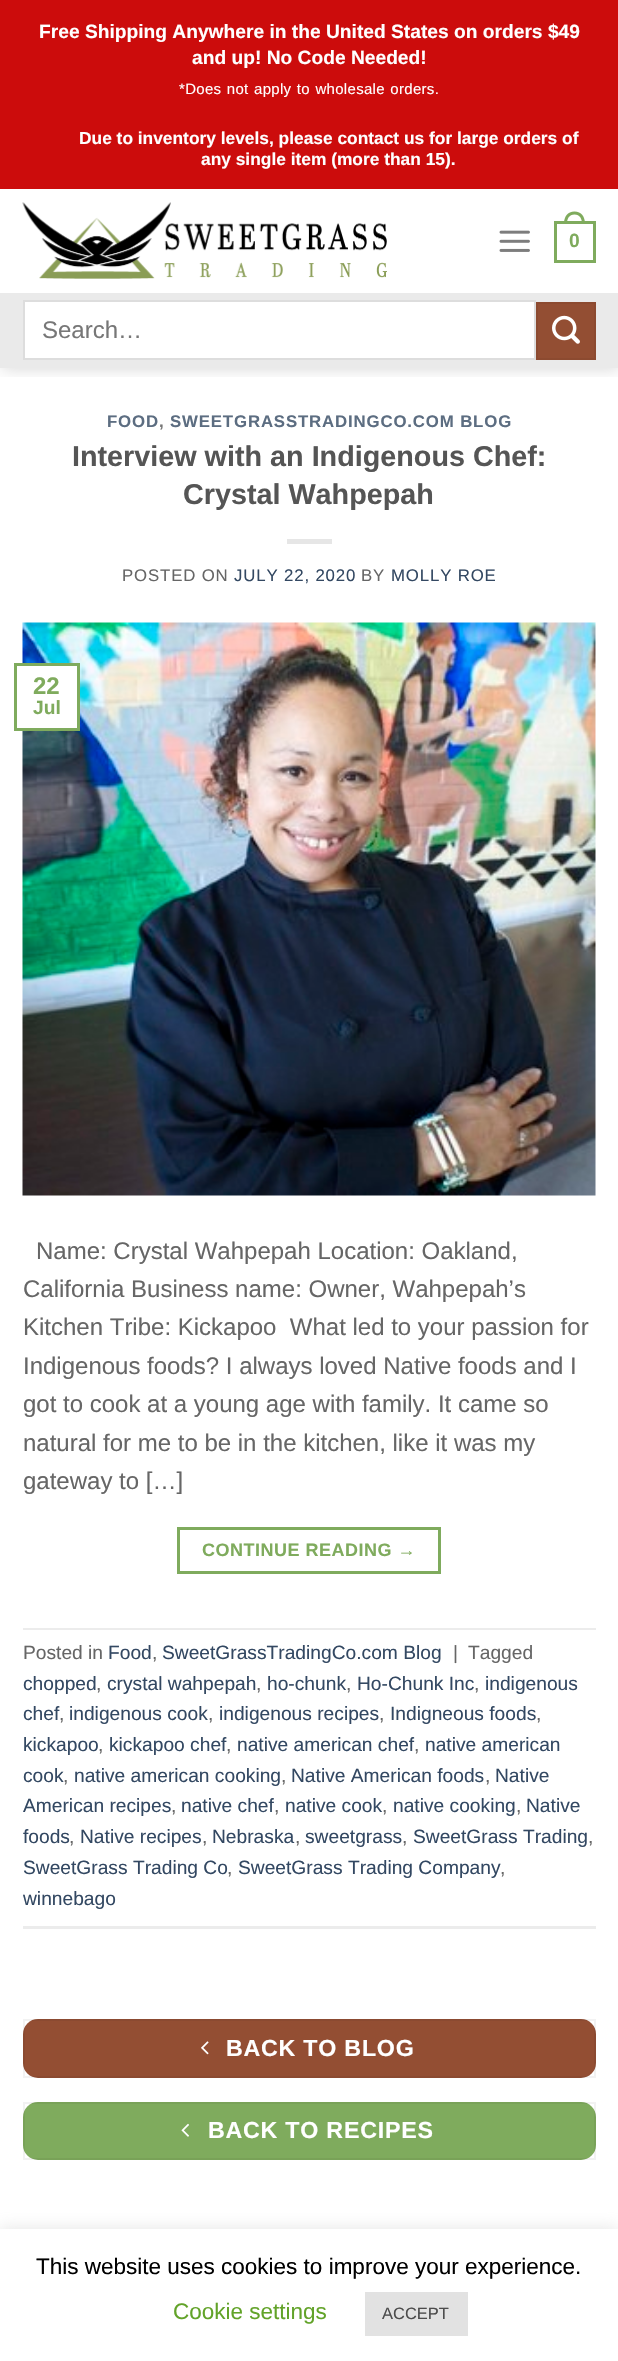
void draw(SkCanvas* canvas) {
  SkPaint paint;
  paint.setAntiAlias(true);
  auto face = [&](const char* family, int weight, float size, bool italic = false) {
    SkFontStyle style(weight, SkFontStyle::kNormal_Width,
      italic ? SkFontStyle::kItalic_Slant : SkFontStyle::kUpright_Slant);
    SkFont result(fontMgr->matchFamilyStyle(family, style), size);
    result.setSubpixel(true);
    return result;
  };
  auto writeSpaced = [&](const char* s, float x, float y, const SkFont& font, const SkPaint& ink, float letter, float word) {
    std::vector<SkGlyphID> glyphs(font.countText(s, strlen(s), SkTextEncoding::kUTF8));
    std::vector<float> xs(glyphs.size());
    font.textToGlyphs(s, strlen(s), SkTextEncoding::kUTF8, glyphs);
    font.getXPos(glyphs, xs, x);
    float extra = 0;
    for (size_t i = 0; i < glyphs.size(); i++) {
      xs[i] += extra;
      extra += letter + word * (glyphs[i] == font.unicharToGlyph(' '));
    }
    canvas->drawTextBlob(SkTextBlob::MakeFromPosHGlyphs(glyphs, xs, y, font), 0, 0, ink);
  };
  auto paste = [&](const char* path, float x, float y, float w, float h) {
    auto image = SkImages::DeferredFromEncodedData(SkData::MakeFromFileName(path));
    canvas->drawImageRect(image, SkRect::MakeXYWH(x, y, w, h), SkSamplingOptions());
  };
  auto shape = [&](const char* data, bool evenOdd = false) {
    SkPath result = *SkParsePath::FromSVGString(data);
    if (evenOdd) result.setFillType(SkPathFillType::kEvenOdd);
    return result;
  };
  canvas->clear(0xffffffff);
  canvas->save();
  canvas->clipRect(SkRect::MakeXYWH(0, 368, 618, 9));
  paint.setColor(0x26000000);
  paint.setMaskFilter(SkMaskFilter::MakeBlur(kNormal_SkBlurStyle, 7.5f));
  canvas->drawRect(SkRect::MakeXYWH(2, 2, 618, 367), paint);
  paint.setMaskFilter(nullptr);
  canvas->restore();
  paint.setColor(0xffcc0c0c);
  canvas->drawRect(SkRect::MakeXYWH(0, 0, 618, 189), paint);
  paste("img/1.png", 22, 202, 365, 77);
  paste("img/2.png", 499, 230, 31, 22);
  paint.setStroke(true);
  paint.setStrokeWidth(3);
  paint.setColor(0xff7fab5d);
  canvas->drawRect(SkRect::MakeXYWH(555.5f, 222.5f, 39, 39), paint);
  paint.setStroke(false);
  canvas->drawPath(shape("M574.5 211.5C581.5 211.5 585 217 585 223.5H564C564 217 567.5 211.5 574.5 211.5ZM574.5 214.5C580 214.5 582 219 582 223.5H567C567 219 569 214.5 574.5 214.5Z", true), paint);
  paint.setColor(0xffeaeaea);
  canvas->drawRect(SkRect::MakeXYWH(0, 293, 618, 75), paint);
  paint.setColor(0xffffffff);
  canvas->drawRect(SkRect::MakeXYWH(24, 301, 511, 58), paint);
  paint.setStroke(true);
  paint.setStrokeWidth(2);
  paint.setColor(0xffdddddd);
  canvas->drawRect(SkRect::MakeXYWH(24, 301, 511, 58), paint);
  paint.setStroke(false);
  paint.setColor(0xff934e33);
  canvas->drawRect(SkRect::MakeXYWH(537, 303, 58, 56), paint);
  paint.setStroke(true);
  paint.setColor(0xff8c4a30);
  canvas->drawRect(SkRect::MakeXYWH(537, 303, 58, 56), paint);
  paste("img/3.png", 552, 315, 28, 29);
  paint.setStroke(false);
  paint.setColor(0xffe6e6e6);
  canvas->drawRect(SkRect::MakeXYWH(287, 539, 45, 5), paint);
  paste("img/4.png", 22, 622, 574, 574);
  paint.setColor(0xffffffff);
  canvas->drawRect(SkRect::MakeXYWH(22, 666, 55, 62), paint);
  paint.setStroke(true);
  paint.setStrokeWidth(3);
  paint.setColor(0xff7fab5d);
  canvas->drawRect(SkRect::MakeXYWH(15.5f, 664.5f, 63, 65), paint);
  canvas->drawRect(SkRect::MakeXYWH(178.5f, 1528.5f, 261, 44), paint);
  paint.setStroke(false);
  paint.setColor(0xffececec);
  canvas->drawRect(SkRect::MakeXYWH(23, 1628, 573, 2), paint);
  canvas->drawRect(SkRect::MakeXYWH(23, 1926, 573, 3), paint);
  paint.setColor(0xff934e33);
  canvas->drawRoundRect(SkRect::MakeXYWH(23, 2019, 573, 59), 15, 15, paint);
  paint.setStroke(true);
  paint.setStrokeWidth(2);
  paint.setColor(0x0d000000);
  canvas->drawRect(SkRect::MakeXYWH(24, 2020, 571, 57), paint);
  paste("img/5.png", 201, 2041, 8, 14);
  paint.setStroke(false);
  paint.setColor(0xff7fab5d);
  canvas->drawRoundRect(SkRect::MakeXYWH(23, 2102, 573, 58), 15, 15, paint);
  paint.setStroke(true);
  paint.setColor(0x0d000000);
  canvas->drawRect(SkRect::MakeXYWH(24, 2103, 571, 56), paint);
  paste("img/6.png", 181, 2123, 8, 14);
  paint.setStroke(false);
  paint.setColor(0x4dacabab);
  paint.setMaskFilter(SkMaskFilter::MakeBlur(kNormal_SkBlurStyle, 7.5f));
  canvas->drawRect(SkRect::MakeXYWH(0, 2228, 618, 132), paint);
  paint.setMaskFilter(nullptr);
  paint.setColor(0xffffffff);
  canvas->drawRect(SkRect::MakeXYWH(0, 2229, 618, 132), paint);
  paint.setColor(0xffe2e2e2);
  canvas->drawRect(SkRect::MakeXYWH(365, 2292, 103, 44), paint);
  auto f0 = face("Liberation Sans", 700, 19.2f);
  paint.setColor(0xffffffff);
  canvas->drawString("Free Shipping Anywhere in the United States on orders $49", 39, 38, f0, paint);
  canvas->drawString("and up! No Code Needed!", 192, 64, f0, paint);
  auto f1 = face("Liberation Sans", 400, 15);
  writeSpaced("*Does not apply to wholesale orders.", 179, 94, f1, paint, 0.3f, 1);
  auto f2 = face("Liberation Sans", 700, 17.35f);
  canvas->drawString("Due to inventory levels, please contact us for large orders of", 79, 144, f2, paint);
  canvas->drawString("any single item (more than 15).", 201, 165, f2, paint);
  paint.setColor(0xff7fab5d);
  canvas->drawString("0", 569, 247, f0, paint);
  auto f3 = face("Liberation Sans", 400, 24);
  paint.setColor(0xff777777);
  canvas->drawString("Search…", 42, 338, f3, paint);
  auto f4 = face("Liberation Sans", 700, 16.8f);
  paint.setColor(0xff5c6d81);
  writeSpaced("FOOD", 107, 427, f4, paint, 0.85f, 0);
  paint.setColor(0xff777777);
  writeSpaced(",", 159, 427, f4, paint, 0.85f, 0);
  paint.setColor(0xff5c6d81);
  writeSpaced("SWEETGRASSTRADINGCO.COM BLOG", 170, 427, f4, paint, 0.85f, 0);
  auto f5 = face("Liberation Sans", 700, 28.75f);
  paint.setColor(0xff555555);
  canvas->drawString("Interview with an Indigenous Chef:", 72, 466, f5, paint);
  canvas->drawString("Crystal Wahpepah", 183, 504, f5, paint);
  auto f6 = face("Liberation Sans", 400, 16.8f);
  paint.setColor(0xff666666);
  writeSpaced("POSTED ON", 122, 581, f6, paint, 0.85f, 0);
  paint.setColor(0xff334862);
  writeSpaced("JULY 22, 2020", 234, 581, f6, paint, 0.85f, 0);
  paint.setColor(0xff666666);
  writeSpaced("BY", 361, 581, f6, paint, 0.85f, 0);
  paint.setColor(0xff334862);
  writeSpaced("MOLLY ROE", 391, 581, f6, paint, 0.85f, 0);
  auto f7 = face("Liberation Sans", 700, 24);
  paint.setColor(0xff7fab5d);
  canvas->drawString("22", 33, 694, f7, paint);
  canvas->drawString("Jul", 33, 714, f0, paint);
  paint.setColor(0xff666666);
  {
    const struct { const char* s; float x, y; } items[] = {
      {"Name: Crystal Wahpepah Location: Oakland,", 36, 1259},
      {"California Business name: Owner, Wahpepah’s", 23, 1297},
      {"Kitchen Tribe: Kickapoo  What led to your passion for", 23, 1335},
      {"Indigenous foods? I always loved Native foods and I", 23, 1374},
      {"got to cook at a young age with family. It came so", 23, 1412},
      {"natural for me to be in the kitchen, like it was my", 23, 1451},
      {"gateway to […]", 23, 1489},
    };
    for (auto [s, x, y] : items) {
      canvas->drawString(s, x, y, f3, paint);
    }
  }
  auto f8 = face("Liberation Sans", 700, 18);
  paint.setColor(0xff7fab5d);
  writeSpaced("CONTINUE READING →", 202, 1556, f8, paint, 0.5f, 0);
  auto f9 = face("Liberation Sans", 400, 19.2f);
  paint.setColor(0xff666666);
  canvas->drawString("Posted in", 23, 1659, f9, paint);
  paint.setColor(0xff334862);
  canvas->drawString("Food", 108, 1659, f9, paint);
  paint.setColor(0xff666666);
  canvas->drawString(",", 152, 1659, f9, paint);
  paint.setColor(0xff334862);
  canvas->drawString("SweetGrassTradingCo.com Blog", 162, 1659, f9, paint);
  paint.setColor(0xff666666);
  canvas->drawString("|", 453, 1659, f9, paint);
  canvas->drawString("Tagged", 468, 1659, f9, paint);
  paint.setColor(0xff334862);
  canvas->drawString("chopped", 23, 1690, f9, paint);
  paint.setColor(0xff666666);
  canvas->drawString(",", 96, 1690, f9, paint);
  paint.setColor(0xff334862);
  canvas->drawString("crystal wahpepah", 107, 1690, f9, paint);
  paint.setColor(0xff666666);
  canvas->drawString(",", 256, 1690, f9, paint);
  paint.setColor(0xff334862);
  canvas->drawString("ho-chunk", 267, 1690, f9, paint);
  paint.setColor(0xff666666);
  canvas->drawString(",", 346, 1690, f9, paint);
  paint.setColor(0xff334862);
  canvas->drawString("Ho-Chunk Inc", 357, 1690, f9, paint);
  paint.setColor(0xff666666);
  canvas->drawString(",", 474, 1690, f9, paint);
  paint.setColor(0xff334862);
  canvas->drawString("indigenous", 485, 1690, f9, paint);
  canvas->drawString("chef", 23, 1720, f9, paint);
  paint.setColor(0xff666666);
  canvas->drawString(",", 59, 1720, f9, paint);
  paint.setColor(0xff334862);
  canvas->drawString("indigenous cook", 69, 1720, f9, paint);
  paint.setColor(0xff666666);
  canvas->drawString(",", 208, 1720, f9, paint);
  paint.setColor(0xff334862);
  canvas->drawString("indigenous recipes", 219, 1720, f9, paint);
  paint.setColor(0xff666666);
  canvas->drawString(",", 379, 1720, f9, paint);
  paint.setColor(0xff334862);
  canvas->drawString("Indigneous foods", 390, 1720, f9, paint);
  paint.setColor(0xff666666);
  canvas->drawString(",", 536, 1720, f9, paint);
  paint.setColor(0xff334862);
  canvas->drawString("kickapoo", 23, 1751, f9, paint);
  paint.setColor(0xff666666);
  canvas->drawString(",", 98, 1751, f9, paint);
  paint.setColor(0xff334862);
  canvas->drawString("kickapoo chef", 109, 1751, f9, paint);
  paint.setColor(0xff666666);
  canvas->drawString(",", 226, 1751, f9, paint);
  paint.setColor(0xff334862);
  canvas->drawString("native american chef", 237, 1751, f9, paint);
  paint.setColor(0xff666666);
  canvas->drawString(",", 414, 1751, f9, paint);
  paint.setColor(0xff334862);
  canvas->drawString("native american", 425, 1751, f9, paint);
  canvas->drawString("cook", 23, 1782, f9, paint);
  paint.setColor(0xff666666);
  canvas->drawString(",", 63, 1782, f9, paint);
  paint.setColor(0xff334862);
  canvas->drawString("native american cooking", 74, 1782, f9, paint);
  paint.setColor(0xff666666);
  canvas->drawString(",", 281, 1782, f9, paint);
  paint.setColor(0xff334862);
  canvas->drawString("Native American foods", 291, 1782, f9, paint);
  paint.setColor(0xff666666);
  canvas->drawString(",", 485, 1782, f9, paint);
  paint.setColor(0xff334862);
  canvas->drawString("Native", 495, 1782, f9, paint);
  canvas->drawString("American recipes", 23, 1812, f9, paint);
  paint.setColor(0xff666666);
  canvas->drawString(",", 171, 1812, f9, paint);
  paint.setColor(0xff334862);
  canvas->drawString("native chef", 181, 1812, f9, paint);
  paint.setColor(0xff666666);
  canvas->drawString(",", 274, 1812, f9, paint);
  paint.setColor(0xff334862);
  canvas->drawString("native cook", 285, 1812, f9, paint);
  paint.setColor(0xff666666);
  canvas->drawString(",", 382, 1812, f9, paint);
  paint.setColor(0xff334862);
  canvas->drawString("native cooking", 393, 1812, f9, paint);
  paint.setColor(0xff666666);
  canvas->drawString(",", 516, 1812, f9, paint);
  paint.setColor(0xff334862);
  canvas->drawString("Native", 526, 1812, f9, paint);
  canvas->drawString("foods", 23, 1843, f9, paint);
  paint.setColor(0xff666666);
  canvas->drawString(",", 69, 1843, f9, paint);
  paint.setColor(0xff334862);
  canvas->drawString("Native recipes", 80, 1843, f9, paint);
  paint.setColor(0xff666666);
  canvas->drawString(",", 202, 1843, f9, paint);
  paint.setColor(0xff334862);
  canvas->drawString("Nebraska", 212, 1843, f9, paint);
  paint.setColor(0xff666666);
  canvas->drawString(",", 295, 1843, f9, paint);
  paint.setColor(0xff334862);
  canvas->drawString("sweetgrass", 305, 1843, f9, paint);
  paint.setColor(0xff666666);
  canvas->drawString(",", 402, 1843, f9, paint);
  paint.setColor(0xff334862);
  canvas->drawString("SweetGrass Trading", 413, 1843, f9, paint);
  paint.setColor(0xff666666);
  canvas->drawString(",", 588, 1843, f9, paint);
  paint.setColor(0xff334862);
  canvas->drawString("SweetGrass Trading Co", 23, 1874, f9, paint);
  paint.setColor(0xff666666);
  canvas->drawString(",", 227, 1874, f9, paint);
  paint.setColor(0xff334862);
  canvas->drawString("SweetGrass Trading Company", 238, 1874, f9, paint);
  paint.setColor(0xff666666);
  canvas->drawString(",", 500, 1874, f9, paint);
  paint.setColor(0xff334862);
  canvas->drawString("winnebago", 23, 1905, f9, paint);
  auto f10 = face("Liberation Sans", 700, 23.25f);
  paint.setColor(0xffffffff);
  writeSpaced("BACK TO BLOG", 226, 2056, f10, paint, 0.75f, 0);
  writeSpaced("BACK TO RECIPES", 208, 2138, f10, paint, 0.75f, 0);
  auto f11 = face("Liberation Sans", 400, 22.5f);
  paint.setColor(0xff000000);
  canvas->drawString("This website uses cookies to improve your experience.", 36, 2274, f11, paint);
  paint.setColor(0xff62a329);
  canvas->drawString("Cookie settings", 173, 2319, f11, paint);
  auto f12 = face("Liberation Sans", 400, 16.5f);
  paint.setColor(0xff4c4c4c);
  canvas->drawString("ACCEPT", 382, 2319, f12, paint);
}
